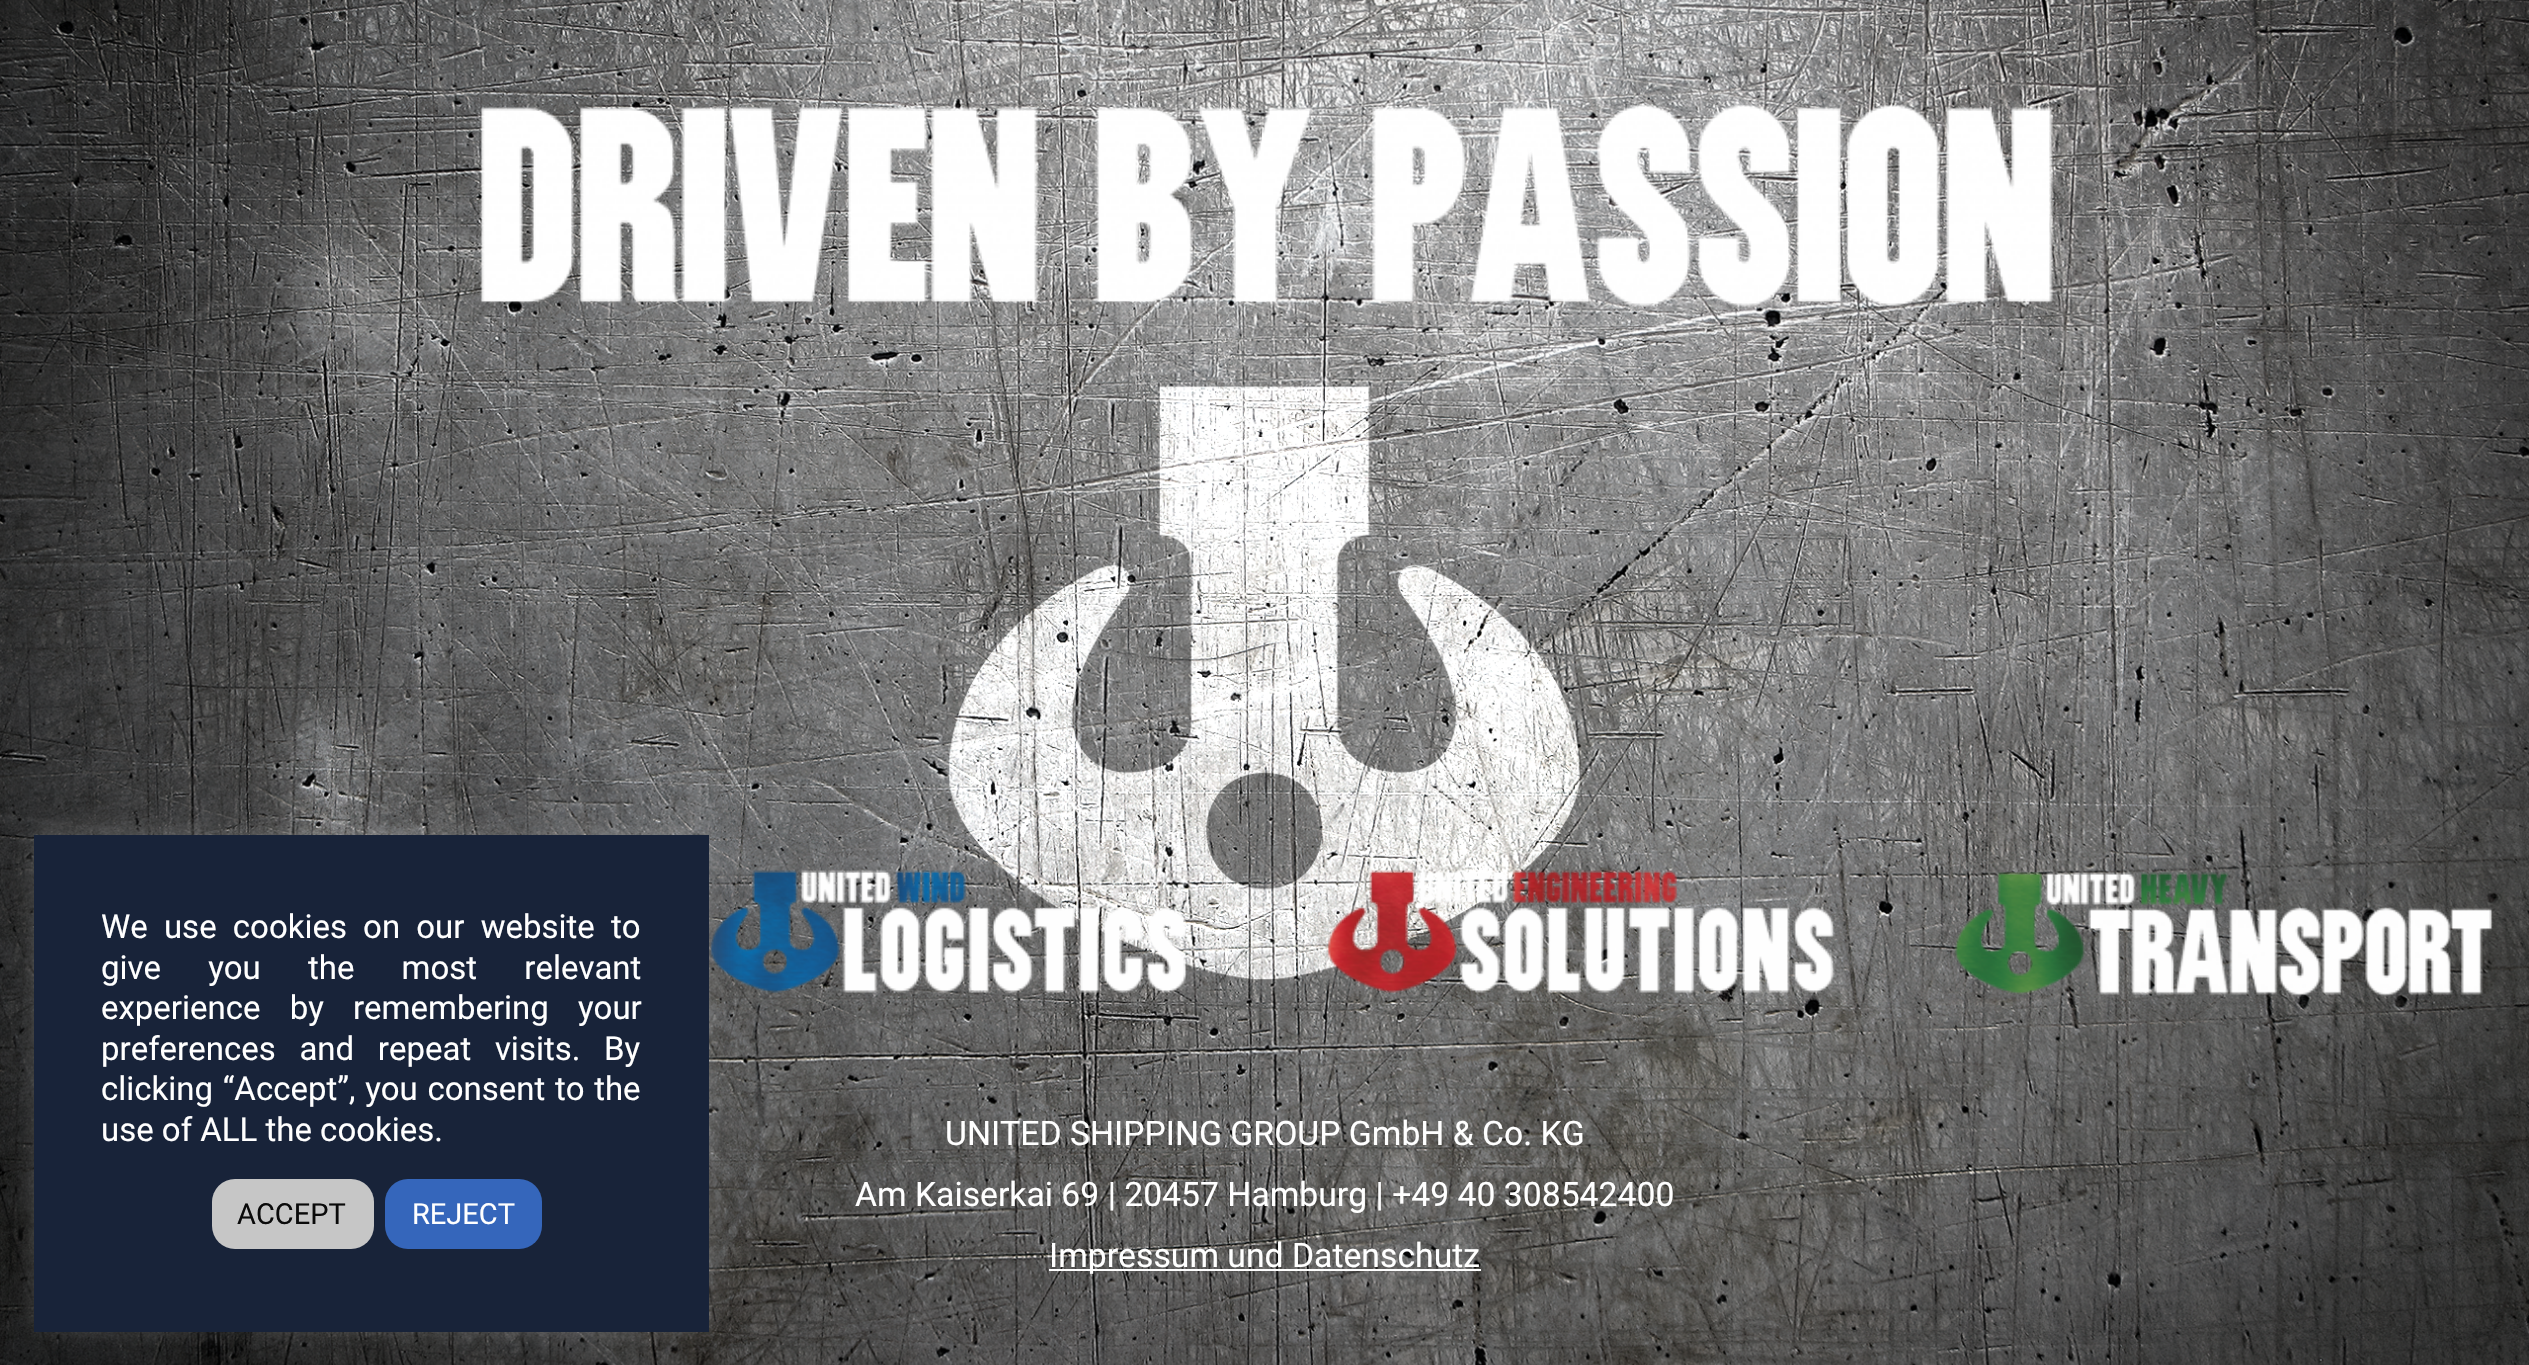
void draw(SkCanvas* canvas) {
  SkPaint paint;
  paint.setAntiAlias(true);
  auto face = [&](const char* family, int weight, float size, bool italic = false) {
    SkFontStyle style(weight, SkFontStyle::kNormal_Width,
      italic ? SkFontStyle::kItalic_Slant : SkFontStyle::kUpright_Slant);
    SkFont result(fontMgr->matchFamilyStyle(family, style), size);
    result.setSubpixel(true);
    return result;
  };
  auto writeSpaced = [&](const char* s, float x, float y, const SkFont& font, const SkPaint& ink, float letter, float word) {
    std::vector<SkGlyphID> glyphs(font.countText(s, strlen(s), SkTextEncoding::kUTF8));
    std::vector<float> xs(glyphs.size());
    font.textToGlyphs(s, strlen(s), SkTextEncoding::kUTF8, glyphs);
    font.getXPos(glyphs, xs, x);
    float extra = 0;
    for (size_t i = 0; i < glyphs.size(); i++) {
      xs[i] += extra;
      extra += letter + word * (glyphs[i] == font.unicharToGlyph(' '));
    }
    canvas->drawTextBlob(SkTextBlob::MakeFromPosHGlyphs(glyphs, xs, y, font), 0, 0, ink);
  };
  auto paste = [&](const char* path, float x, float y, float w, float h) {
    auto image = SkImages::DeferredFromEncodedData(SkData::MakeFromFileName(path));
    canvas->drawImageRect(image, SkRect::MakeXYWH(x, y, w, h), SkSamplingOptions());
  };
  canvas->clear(0xffffffff);
  paste("img/1.png", 0, 0, 2529, 1365);
  paste("img/3.png", 710, 870, 477, 123);
  paint.setColor(0x4dacabab);
  paint.setMaskFilter(SkMaskFilter::MakeBlur(kNormal_SkBlurStyle, 11));
  canvas->drawRect(SkRect::MakeXYWH(34, 833, 675, 497), paint);
  paint.setMaskFilter(nullptr);
  paint.setColor(0xff182339);
  canvas->drawRect(SkRect::MakeXYWH(34, 835, 675, 497), paint);
  paint.setColor(0xffc6c6c6);
  canvas->drawRoundRect(SkRect::MakeXYWH(212, 1179, 162, 70), 23, 23, paint);
  paint.setColor(0xff3566bb);
  canvas->drawRoundRect(SkRect::MakeXYWH(385, 1179, 157, 70), 23, 23, paint);
  paste("img/2.png", 480, 103, 1573, 204);
  paste("img/4.png", 1326, 870, 509, 123);
  paste("img/5.png", 1954, 872, 539, 125);
  paint.setColor(0xffffffff);
  canvas->drawRect(SkRect::MakeXYWH(1049, 1269, 432, 2), paint);
  auto f0 = face("Roboto", 400, 33);
  writeSpaced("We use cookies on our website to", 101, 938, f0, paint, 0, 8);
  writeSpaced("give you the most relevant", 101, 979, f0, paint, 0, 39);
  writeSpaced("experience by remembering your", 101, 1019, f0, paint, 0, 21);
  writeSpaced("preferences and repeat visits. By", 101, 1060, f0, paint, 0, 15.5f);
  writeSpaced("clicking “Accept”, you consent to the", 101, 1100, f0, paint, 0, 1.5f);
  canvas->drawString("use of ALL the cookies.", 101, 1141, f0, paint);
  auto f1 = face("Roboto", 400, 29);
  paint.setColor(0xff0a0a0a);
  canvas->drawString("ACCEPT", 237, 1224, f1, paint);
  paint.setColor(0xffffffff);
  canvas->drawString("REJECT", 412, 1224, f1, paint);
  auto f2 = face("Roboto", 400, 33.75f);
  {
    const struct { const char* s; float x, y; } items[] = {
      {"UNITED SHIPPING GROUP GmbH & Co. KG", 945, 1145},
      {"Am Kaiserkai 69 | 20457 Hamburg | +49 40 308542400", 855, 1206},
      {"Impressum und Datenschutz", 1049, 1267},
    };
    for (auto [s, x, y] : items) {
      canvas->drawString(s, x, y, f2, paint);
    }
  }
}
